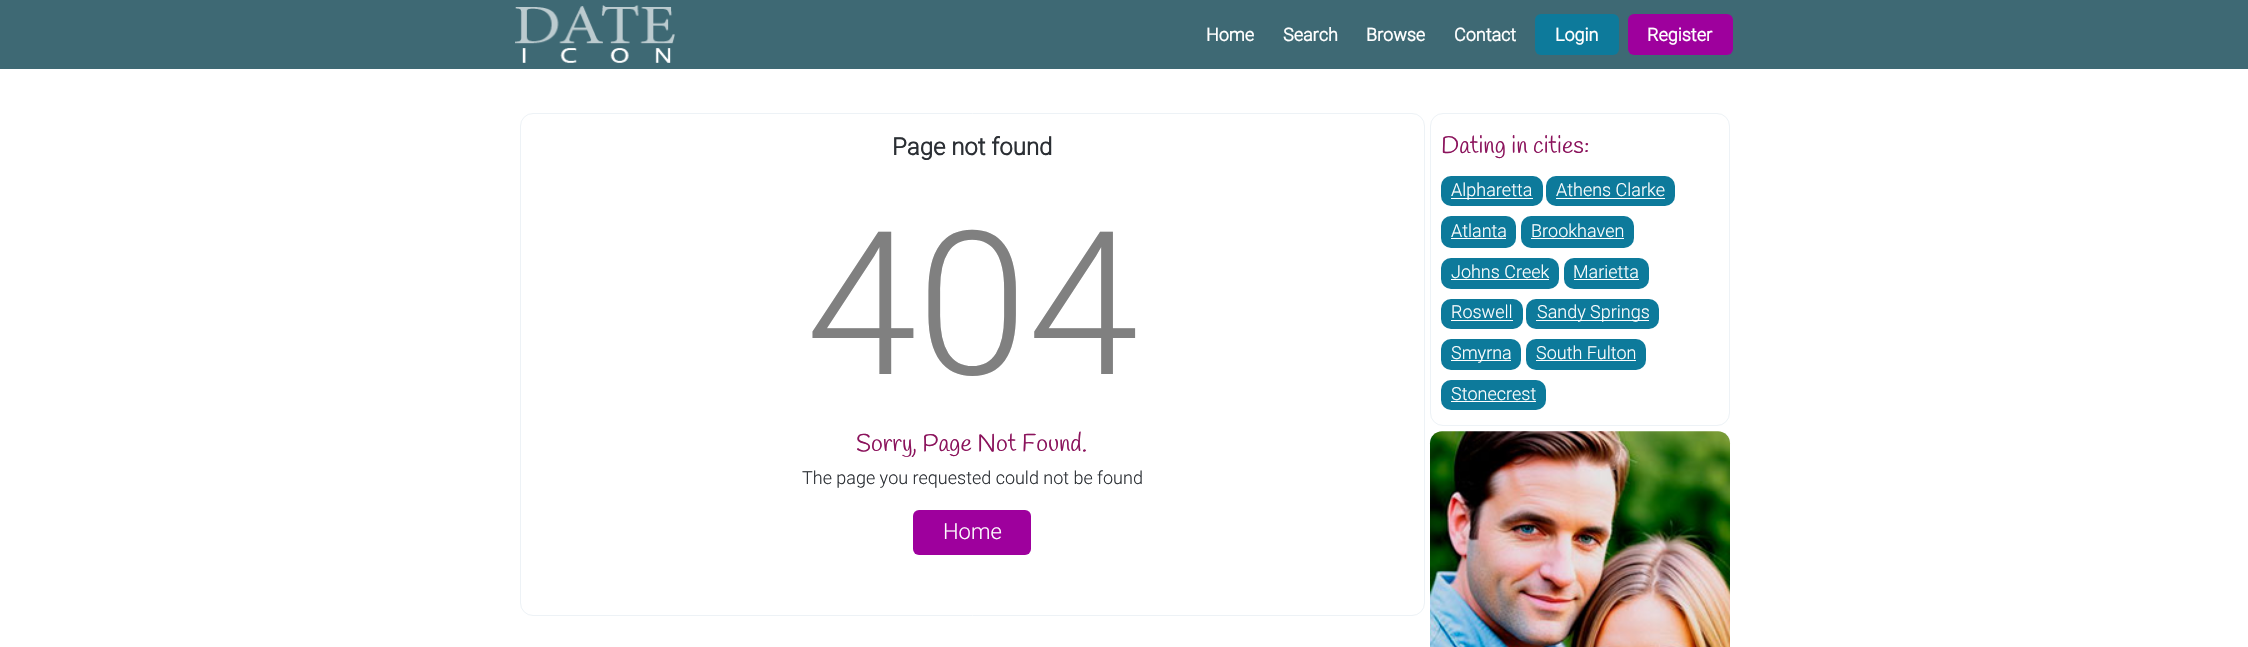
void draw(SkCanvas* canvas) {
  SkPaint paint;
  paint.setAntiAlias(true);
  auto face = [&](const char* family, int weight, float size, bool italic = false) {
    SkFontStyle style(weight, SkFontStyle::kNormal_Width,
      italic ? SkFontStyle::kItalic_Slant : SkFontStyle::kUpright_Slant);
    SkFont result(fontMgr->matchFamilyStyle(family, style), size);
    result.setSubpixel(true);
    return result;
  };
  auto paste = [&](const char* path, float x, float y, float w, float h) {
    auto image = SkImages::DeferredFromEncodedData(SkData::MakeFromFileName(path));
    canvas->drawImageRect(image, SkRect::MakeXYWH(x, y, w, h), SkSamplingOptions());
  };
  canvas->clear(0xffffffff);
  paint.setColor(0xff3e6974);
  canvas->drawRect(SkRect::MakeXYWH(0, 0, 2248, 69), paint);
  paste("img/1.png", 515, 5, 160, 58);
  paint.setColor(0xff0d7a9b);
  canvas->drawRoundRect(SkRect::MakeXYWH(1535, 14, 84, 41), 6, 6, paint);
  paint.setColor(0xff9e009d);
  canvas->drawRoundRect(SkRect::MakeXYWH(1628, 14, 105, 41), 6, 6, paint);
  paint.setStroke(true);
  paint.setStrokeWidth(1);
  paint.setColor(0xffedf2f6);
  canvas->drawRoundRect(SkRect::MakeXYWH(520.5f, 113.5f, 904, 502), 12.5f, 12.5f, paint);
  paint.setStroke(false);
  paint.setColor(0xff9e009d);
  canvas->drawRoundRect(SkRect::MakeXYWH(913, 510, 118, 45), 6, 6, paint);
  paint.setStroke(true);
  paint.setColor(0xffedf2f6);
  canvas->drawRoundRect(SkRect::MakeXYWH(1430.5f, 113.5f, 299, 312), 12.5f, 12.5f, paint);
  paint.setStroke(false);
  paint.setColor(0xff0d7a9b);
  canvas->drawRoundRect(SkRect::MakeXYWH(1441, 176, 102, 30), 10, 10, paint);
  paint.setColor(0xffffffff);
  canvas->drawRect(SkRect::MakeXYWH(1451, 198, 82, 1), paint);
  paint.setColor(0xff0d7a9b);
  canvas->drawRoundRect(SkRect::MakeXYWH(1546, 176, 129, 30), 10, 10, paint);
  paint.setColor(0xffffffff);
  canvas->drawRect(SkRect::MakeXYWH(1556, 198, 109, 1), paint);
  paint.setColor(0xff0d7a9b);
  canvas->drawRoundRect(SkRect::MakeXYWH(1441, 216, 75, 32), 10, 10, paint);
  paint.setColor(0xffffffff);
  canvas->drawRect(SkRect::MakeXYWH(1451, 238, 55, 1), paint);
  paint.setColor(0xff0d7a9b);
  canvas->drawRoundRect(SkRect::MakeXYWH(1521, 216, 113, 32), 10, 10, paint);
  paint.setColor(0xffffffff);
  canvas->drawRect(SkRect::MakeXYWH(1531, 238, 93, 1), paint);
  paint.setColor(0xff0d7a9b);
  canvas->drawRoundRect(SkRect::MakeXYWH(1441, 258, 118, 31), 10, 10, paint);
  paint.setColor(0xffffffff);
  canvas->drawRect(SkRect::MakeXYWH(1451, 279, 98, 1), paint);
  paint.setColor(0xff0d7a9b);
  canvas->drawRoundRect(SkRect::MakeXYWH(1564, 258, 85, 31), 10, 10, paint);
  paint.setColor(0xffffffff);
  canvas->drawRect(SkRect::MakeXYWH(1574, 279, 65, 1), paint);
  paint.setColor(0xff0d7a9b);
  canvas->drawRoundRect(SkRect::MakeXYWH(1441, 299, 82, 30), 10, 10, paint);
  paint.setColor(0xffffffff);
  canvas->drawRect(SkRect::MakeXYWH(1451, 320, 62, 1), paint);
  paint.setColor(0xff0d7a9b);
  canvas->drawRoundRect(SkRect::MakeXYWH(1526, 299, 133, 30), 10, 10, paint);
  paint.setColor(0xffffffff);
  canvas->drawRect(SkRect::MakeXYWH(1536, 320, 113, 1), paint);
  paint.setColor(0xff0d7a9b);
  canvas->drawRoundRect(SkRect::MakeXYWH(1441, 339, 80, 31), 10, 10, paint);
  paint.setColor(0xffffffff);
  canvas->drawRect(SkRect::MakeXYWH(1451, 360, 60, 1), paint);
  paint.setColor(0xff0d7a9b);
  canvas->drawRoundRect(SkRect::MakeXYWH(1526, 339, 120, 31), 10, 10, paint);
  paint.setColor(0xffffffff);
  canvas->drawRect(SkRect::MakeXYWH(1536, 360, 100, 1), paint);
  paint.setColor(0xff0d7a9b);
  canvas->drawRoundRect(SkRect::MakeXYWH(1441, 380, 105, 30), 10, 10, paint);
  paint.setColor(0xffffffff);
  canvas->drawRect(SkRect::MakeXYWH(1451, 401, 85, 1), paint);
  paste("img/2.png", 1429, 431, 302, 216);
  auto f0 = face("Roboto", 700, 18);
  {
    const struct { const char* s; float x, y; } items[] = {
      {"Home", 1206, 41},
      {"Search", 1283, 41},
      {"Browse", 1366, 41},
      {"Contact", 1454, 41},
      {"Login", 1555, 41},
      {"Register", 1647, 41},
    };
    for (auto [s, x, y] : items) {
      canvas->drawString(s, x, y, f0, paint);
    }
  }
  auto f1 = face("Roboto", 700, 24);
  paint.setColor(0xff2b2f34);
  canvas->drawString("Page not found", 892, 155, f1, paint);
  auto f2 = face("Roboto", 300, 200);
  paint.setColor(0xff808080);
  canvas->drawString("404", 806, 374, f2, paint);
  auto f3 = face("Handlee", 400, 24);
  paint.setColor(0xff8b135c);
  canvas->drawString("Sorry, Page Not Found.", 856, 451, f3, paint);
  auto f4 = face("Roboto", 300, 18);
  paint.setColor(0xff2b2f34);
  canvas->drawString("The page you requested could not be found", 802, 484, f4, paint);
  auto f5 = face("Roboto", 300, 22);
  paint.setColor(0xffffffff);
  canvas->drawString("Home", 943, 539, f5, paint);
  paint.setColor(0xff8b135c);
  canvas->drawString("Dating in cities:", 1441, 153, f3, paint);
  paint.setColor(0xffffffff);
  {
    const struct { const char* s; float x, y; } items[] = {
      {"Alpharetta", 1451, 196},
      {"Athens Clarke", 1556, 196},
      {"Atlanta", 1451, 237},
      {"Brookhaven", 1531, 237},
      {"Johns Creek", 1451, 278},
      {"Marietta", 1573, 278},
      {"Roswell", 1451, 318},
      {"Sandy Springs", 1537, 318},
      {"Smyrna", 1451, 359},
      {"South Fulton", 1536, 359},
      {"Stonecrest", 1451, 400},
    };
    for (auto [s, x, y] : items) {
      canvas->drawString(s, x, y, f4, paint);
    }
  }
}
